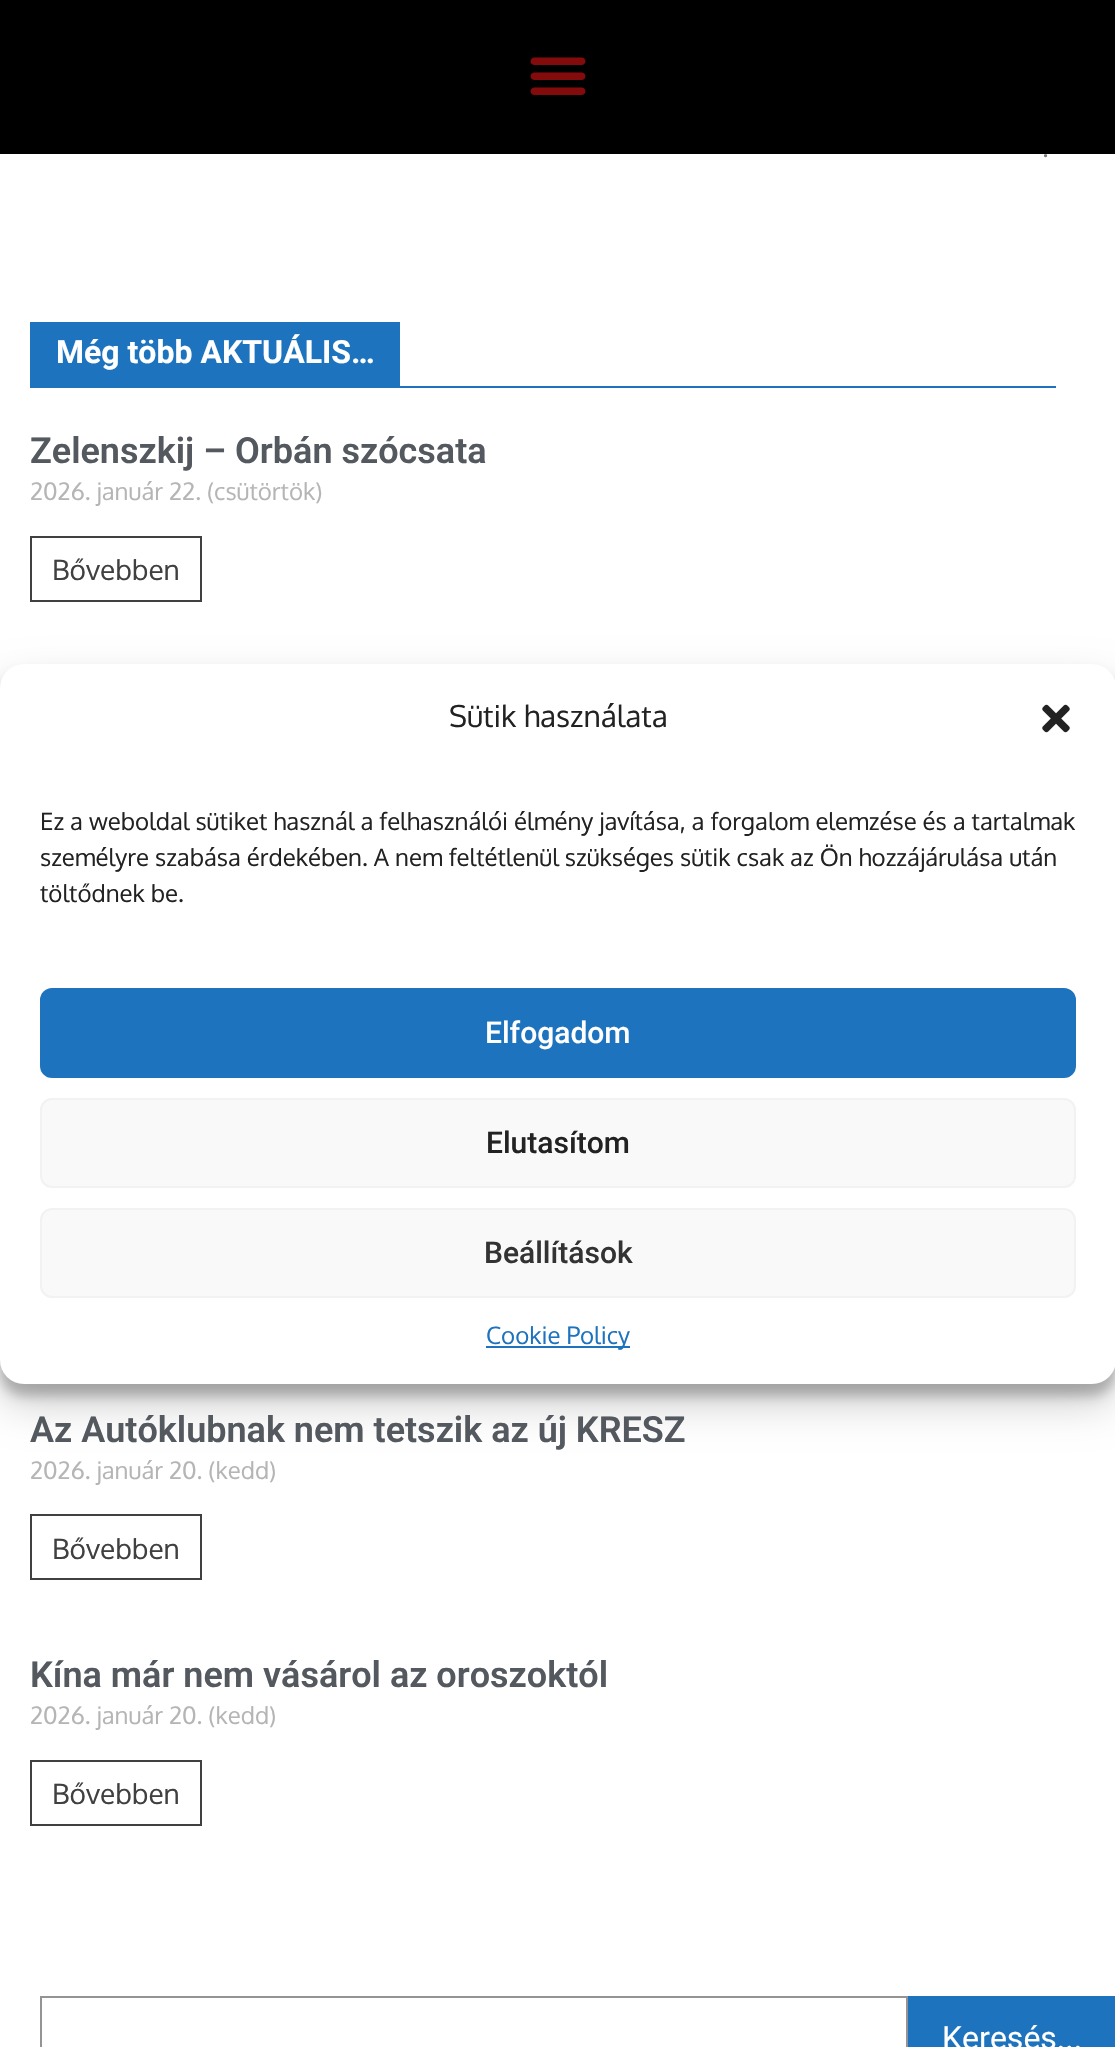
void draw(SkCanvas* canvas) {
  SkPaint paint;
  paint.setAntiAlias(true);
  auto face = [&](const char* family, int weight, float size, bool italic = false) {
    SkFontStyle style(weight, SkFontStyle::kNormal_Width,
      italic ? SkFontStyle::kItalic_Slant : SkFontStyle::kUpright_Slant);
    SkFont result(fontMgr->matchFamilyStyle(family, style), size);
    result.setSubpixel(true);
    return result;
  };
  auto paste = [&](const char* path, float x, float y, float w, float h) {
    auto image = SkImages::DeferredFromEncodedData(SkData::MakeFromFileName(path));
    canvas->drawImageRect(image, SkRect::MakeXYWH(x, y, w, h), SkSamplingOptions());
  };
  canvas->clear(0xffffffff);
  paint.setColor(0xff000000);
  canvas->drawRect(SkRect::MakeXYWH(0, 0, 1115, 154), paint);
  paste("img/1.png", 530, 57, 56, 38);
  paint.setColor(0xff1e73be);
  canvas->drawRect(SkRect::MakeXYWH(30, 386, 1026, 2), paint);
  canvas->drawRect(SkRect::MakeXYWH(30, 322, 370, 64), paint);
  paint.setStroke(true);
  paint.setStrokeWidth(2);
  paint.setColor(0xff404040);
  canvas->drawRect(SkRect::MakeXYWH(31, 537, 170, 64), paint);
  canvas->drawRect(SkRect::MakeXYWH(31, 1515, 170, 64), paint);
  canvas->drawRect(SkRect::MakeXYWH(31, 1761, 170, 64), paint);
  paint.setColor(0xff949494);
  canvas->drawRect(SkRect::MakeXYWH(41, 1997, 866, 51), paint);
  paint.setStroke(false);
  paint.setColor(0xff1e73be);
  canvas->drawRect(SkRect::MakeXYWH(908, 1996, 207, 51), paint);
  paint.setColor(0x3b000000);
  paint.setMaskFilter(SkMaskFilter::MakeBlur(kNormal_SkBlurStyle, 6));
  canvas->drawRoundRect(SkRect::MakeXYWH(0, 676, 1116, 720), 24, 24, paint);
  paint.setMaskFilter(nullptr);
  paint.setColor(0x30000000);
  paint.setMaskFilter(SkMaskFilter::MakeBlur(kNormal_SkBlurStyle, 20));
  canvas->drawRoundRect(SkRect::MakeXYWH(0, 684, 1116, 720), 24, 24, paint);
  paint.setMaskFilter(nullptr);
  paint.setColor(0xffffffff);
  canvas->drawRoundRect(SkRect::MakeXYWH(0, 664, 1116, 720), 24, 24, paint);
  paste("img/2.png", 1042, 704, 28, 29);
  paint.setColor(0xff1e73be);
  canvas->drawRoundRect(SkRect::MakeXYWH(41, 989, 1034, 88), 11, 11, paint);
  paint.setStroke(true);
  canvas->drawRoundRect(SkRect::MakeXYWH(41, 989, 1034, 88), 11, 11, paint);
  paint.setStroke(false);
  paint.setColor(0xfff9f9f9);
  canvas->drawRoundRect(SkRect::MakeXYWH(41, 1099, 1034, 88), 11, 11, paint);
  paint.setStroke(true);
  paint.setColor(0xfff2f2f2);
  canvas->drawRoundRect(SkRect::MakeXYWH(41, 1099, 1034, 88), 11, 11, paint);
  paint.setStroke(false);
  paint.setColor(0xfff9f9f9);
  canvas->drawRoundRect(SkRect::MakeXYWH(41, 1209, 1034, 88), 11, 11, paint);
  paint.setStroke(true);
  paint.setColor(0xfff2f2f2);
  canvas->drawRoundRect(SkRect::MakeXYWH(41, 1209, 1034, 88), 11, 11, paint);
  paint.setStroke(false);
  paint.setColor(0xff1e73be);
  canvas->drawRect(SkRect::MakeXYWH(486, 1346, 144, 2), paint);
  auto f0 = face("Roboto", 400, 28);
  paint.setColor(0xff7a7a7a);
  canvas->drawString(".", 1042, 157, f0, paint);
  auto f1 = face("Roboto", 700, 32);
  paint.setColor(0xffffffff);
  canvas->drawString("Még több AKTUÁLIS…", 56, 363, f1, paint);
  auto f2 = face("Roboto", 600, 36);
  paint.setColor(0xff54595f);
  canvas->drawString("Zelenszkij – Orbán szócsata", 30, 463, f2, paint);
  auto f3 = face("Oxygen", 400, 24);
  paint.setColor(0xffb5b5b5);
  canvas->drawString("2026. január 22. (csütörtök)", 30, 500, f3, paint);
  auto f4 = face("Oxygen", 400, 28);
  paint.setColor(0xff404040);
  canvas->drawString("Bővebben", 52, 580, f4, paint);
  paint.setColor(0xff54595f);
  canvas->drawString("Az Autóklubnak nem tetszik az új KRESZ", 30, 1442, f2, paint);
  paint.setColor(0xffb5b5b5);
  canvas->drawString("2026. január 20. (kedd)", 30, 1479, f3, paint);
  paint.setColor(0xff404040);
  canvas->drawString("Bővebben", 52, 1559, f4, paint);
  paint.setColor(0xff54595f);
  canvas->drawString("Kína már nem vásárol az oroszoktól", 30, 1687, f2, paint);
  paint.setColor(0xffb5b5b5);
  canvas->drawString("2026. január 20. (kedd)", 30, 1724, f3, paint);
  paint.setColor(0xff404040);
  canvas->drawString("Bővebben", 52, 1804, f4, paint);
  auto f5 = face("Roboto", 400, 32);
  paint.setColor(0xffffffff);
  canvas->drawString("Keresés...", 942, 2049, f5, paint);
  auto f6 = face("Oxygen", 400, 30);
  paint.setColor(0xff222222);
  canvas->drawString("Sütik használata", 449, 727, f6, paint);
  {
    const struct { const char* s; float x, y; } items[] = {
      {"Ez a weboldal sütiket használ a felhasználói élmény javítása, a forgalom elemzése és a tartalmak", 40, 830},
      {"személyre szabása érdekében. A nem feltétlenül szükséges sütik csak az Ön hozzájárulása után", 40, 866},
      {"töltődnek be.", 40, 902},
    };
    for (auto [s, x, y] : items) {
      canvas->drawString(s, x, y, f3, paint);
    }
  }
  auto f7 = face("Roboto", 500, 30);
  paint.setColor(0xffffffff);
  canvas->drawString("Elfogadom", 485, 1043, f7, paint);
  paint.setColor(0xff222222);
  canvas->drawString("Elutasítom", 486, 1153, f7, paint);
  paint.setColor(0xff333333);
  canvas->drawString("Beállítások", 484, 1263, f7, paint);
  paint.setColor(0xff1e73be);
  canvas->drawString("Cookie Policy", 486, 1344, f3, paint);
}
